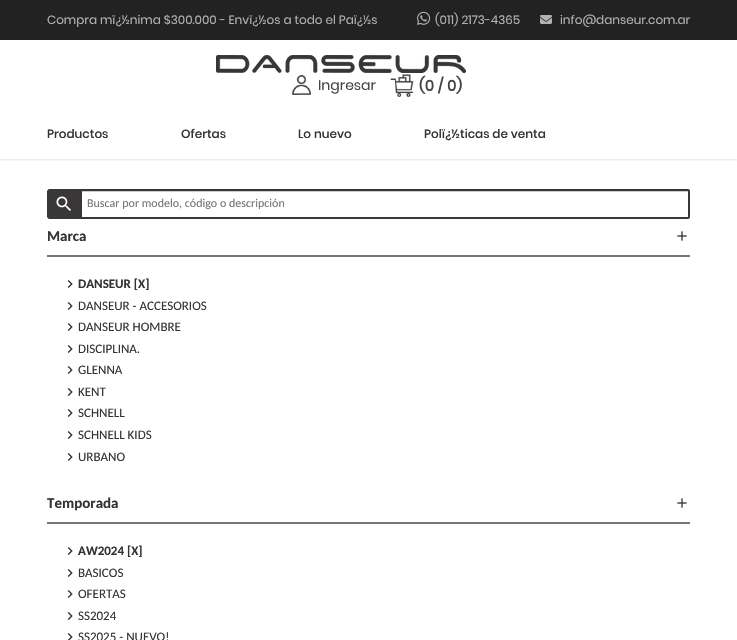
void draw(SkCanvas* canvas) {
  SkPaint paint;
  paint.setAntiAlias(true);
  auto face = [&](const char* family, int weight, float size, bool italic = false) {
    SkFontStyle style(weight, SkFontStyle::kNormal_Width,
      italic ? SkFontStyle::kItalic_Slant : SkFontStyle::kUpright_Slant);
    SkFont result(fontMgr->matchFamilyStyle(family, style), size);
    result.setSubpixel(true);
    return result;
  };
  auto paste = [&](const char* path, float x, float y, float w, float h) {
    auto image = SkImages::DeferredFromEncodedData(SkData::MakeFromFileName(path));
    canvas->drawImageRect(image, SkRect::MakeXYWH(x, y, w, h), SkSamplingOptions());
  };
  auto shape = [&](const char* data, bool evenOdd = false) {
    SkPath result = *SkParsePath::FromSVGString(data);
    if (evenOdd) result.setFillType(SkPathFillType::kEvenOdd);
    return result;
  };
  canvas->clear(0xffffffff);
  canvas->save();
  canvas->clipRect(SkRect::MakeXYWH(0, 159, 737, 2));
  paint.setColor(0x33000000);
  paint.setMaskFilter(SkMaskFilter::MakeBlur(kNormal_SkBlurStyle, 1.5f));
  canvas->drawRect(SkRect::MakeXYWH(0, 0, 737, 159), paint);
  paint.setMaskFilter(nullptr);
  canvas->restore();
  paint.setColor(0xff222222);
  canvas->drawRect(SkRect::MakeXYWH(0, 0, 737, 40), paint);
  paste("img/1.png", 417, 11, 14, 14);
  paste("img/2.png", 540, 15, 12, 9);
  paste("img/3.png", 216, 55, 250, 18);
  paste("img/4.png", 291, 75, 20, 20);
  paste("img/5.png", 390, 74, 24, 23);
  paint.setColor(0xff393738);
  canvas->drawPath(shape("M50 189H80V219H50C48.5 219 47 217.5 47 216V192C47 190.5 48.5 189 50 189Z"), paint);
  canvas->drawPath(shape("M50 189H80V219H50C48.5 219 47 217.5 47 216V192C47 190.5 48.5 189 50 189ZM50 191H80V217H50C49.5 217 49 216.5 49 216V192C49 191.5 49.5 191 50 191Z", true), paint);
  paste("img/6.png", 56, 196, 15, 15);
  paint.setColor(0xffcccccc);
  canvas->drawRect(SkRect::MakeXYWH(82, 191, 606, 1), paint);
  paint.setStroke(true);
  paint.setStrokeWidth(2);
  paint.setColor(0xff393738);
  canvas->drawPath(shape("M81 190H688C688.5 190 689 190.5 689 191V217C689 217.5 688.5 218 688 218H81Z"), paint);
  paint.setStroke(false);
  paint.setColor(0xff777777);
  canvas->drawRect(SkRect::MakeXYWH(47, 255, 643, 2), paint);
  paste("img/7.png", 677, 231, 10, 10);
  paste("img/8.png", 67, 280, 6, 8);
  paste("img/8.png", 67, 302, 6, 8);
  paste("img/8.png", 67, 323, 6, 8);
  paste("img/8.png", 67, 345, 6, 8);
  paste("img/8.png", 67, 366, 6, 8);
  paste("img/8.png", 67, 388, 6, 8);
  paste("img/8.png", 67, 409, 6, 8);
  paste("img/8.png", 67, 431, 6, 8);
  paste("img/8.png", 67, 453, 6, 8);
  canvas->drawRect(SkRect::MakeXYWH(47, 522, 643, 2), paint);
  paste("img/7.png", 677, 498, 10, 10);
  paste("img/8.png", 67, 547, 6, 8);
  paste("img/8.png", 67, 569, 6, 8);
  paste("img/8.png", 67, 590, 6, 8);
  paste("img/8.png", 67, 612, 6, 8);
  paste("img/9.png", 67, 633, 6, 7);
  auto f0 = face("Poppins", 400, 12);
  paint.setColor(0xffb2b2b2);
  {
    const struct { const char* s; float x, y; } items[] = {
      {"Compra mï¿½nima $300.000 - Envï¿½os a todo el Paï¿½s", 47, 24},
      {"(011) 2173-4365", 435, 24},
      {"info@danseur.com.ar", 560, 24},
    };
    for (auto [s, x, y] : items) {
      canvas->drawString(s, x, y, f0, paint);
    }
  }
  auto f1 = face("Poppins", 400, 14);
  paint.setColor(0xff444444);
  canvas->drawString("Ingresar", 318, 90, f1, paint);
  auto f2 = face("Poppins", 700, 15);
  canvas->drawString("(0 / 0)", 419, 91, f2, paint);
  auto f3 = face("Poppins", 500, 12);
  paint.setColor(0xff333333);
  {
    const struct { const char* s; float x, y; } items[] = {
      {"Productos", 47, 138},
      {"Ofertas", 181, 138},
      {"Lo nuevo", 298, 138},
      {"Polï¿½ticas de venta", 424, 138},
    };
    for (auto [s, x, y] : items) {
      canvas->drawString(s, x, y, f3, paint);
    }
  }
  auto f4 = face("Carlito", 400, 12);
  paint.setColor(0xff757575);
  canvas->drawString("Buscar por modelo, código o descripción", 87, 207, f4, paint);
  auto f5 = face("Carlito", 700, 15);
  paint.setColor(0xff333333);
  canvas->drawString("Marca", 47, 241, f5, paint);
  auto f6 = face("Carlito", 700, 13);
  canvas->drawString("DANSEUR [X]", 78, 288, f6, paint);
  auto f7 = face("Carlito", 400, 13);
  {
    const struct { const char* s; float x, y; } items[] = {
      {"DANSEUR - ACCESORIOS", 78, 310},
      {"DANSEUR HOMBRE", 78, 331},
      {"DISCIPLINA.", 78, 353},
      {"GLENNA", 78, 374},
      {"KENT", 78, 396},
      {"SCHNELL", 78, 417},
      {"SCHNELL KIDS", 78, 439},
      {"URBANO", 78, 461},
    };
    for (auto [s, x, y] : items) {
      canvas->drawString(s, x, y, f7, paint);
    }
  }
  canvas->drawString("Temporada", 47, 508, f5, paint);
  canvas->drawString("AW2024 [X]", 78, 555, f6, paint);
  {
    const struct { const char* s; float x, y; } items[] = {
      {"BASICOS", 78, 577},
      {"OFERTAS", 78, 598},
      {"SS2024", 78, 620},
      {"SS2025 - NUEVO!", 78, 641},
    };
    for (auto [s, x, y] : items) {
      canvas->drawString(s, x, y, f7, paint);
    }
  }
}
